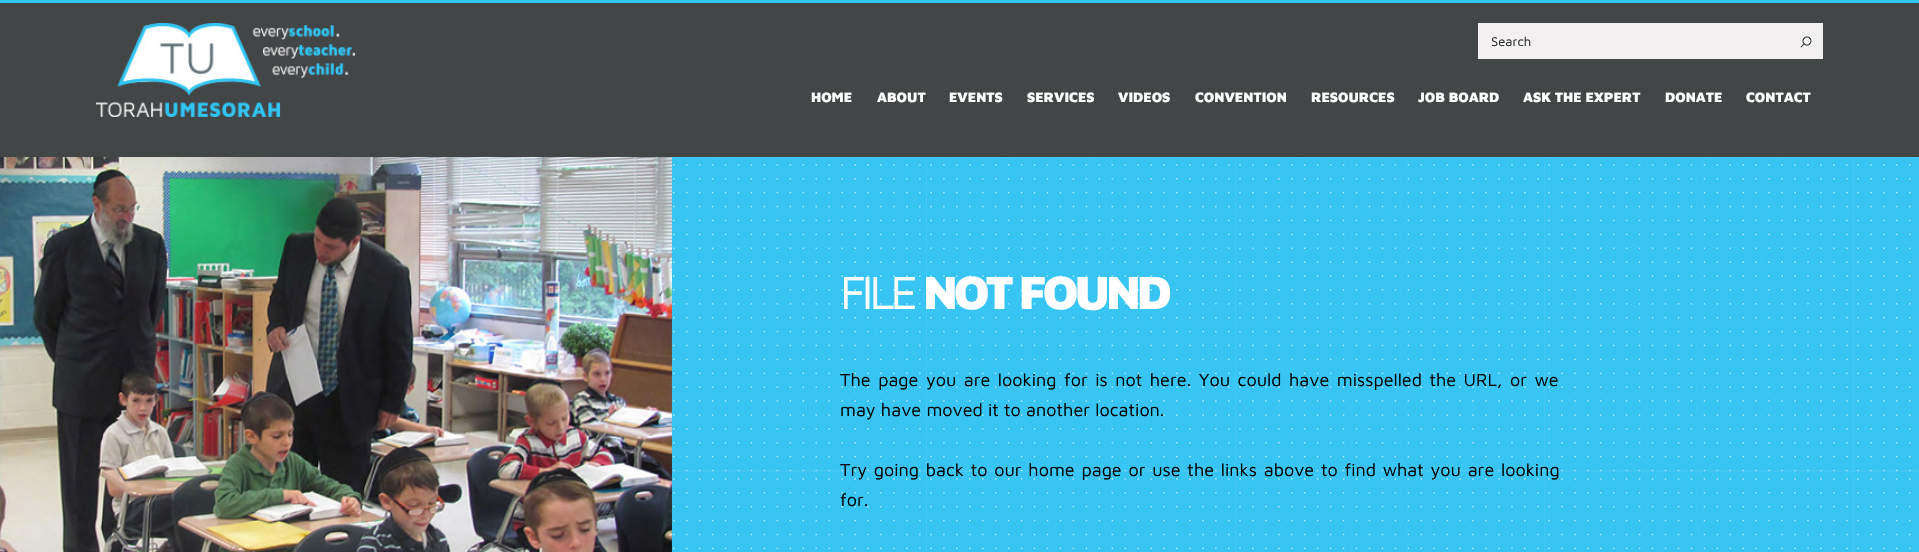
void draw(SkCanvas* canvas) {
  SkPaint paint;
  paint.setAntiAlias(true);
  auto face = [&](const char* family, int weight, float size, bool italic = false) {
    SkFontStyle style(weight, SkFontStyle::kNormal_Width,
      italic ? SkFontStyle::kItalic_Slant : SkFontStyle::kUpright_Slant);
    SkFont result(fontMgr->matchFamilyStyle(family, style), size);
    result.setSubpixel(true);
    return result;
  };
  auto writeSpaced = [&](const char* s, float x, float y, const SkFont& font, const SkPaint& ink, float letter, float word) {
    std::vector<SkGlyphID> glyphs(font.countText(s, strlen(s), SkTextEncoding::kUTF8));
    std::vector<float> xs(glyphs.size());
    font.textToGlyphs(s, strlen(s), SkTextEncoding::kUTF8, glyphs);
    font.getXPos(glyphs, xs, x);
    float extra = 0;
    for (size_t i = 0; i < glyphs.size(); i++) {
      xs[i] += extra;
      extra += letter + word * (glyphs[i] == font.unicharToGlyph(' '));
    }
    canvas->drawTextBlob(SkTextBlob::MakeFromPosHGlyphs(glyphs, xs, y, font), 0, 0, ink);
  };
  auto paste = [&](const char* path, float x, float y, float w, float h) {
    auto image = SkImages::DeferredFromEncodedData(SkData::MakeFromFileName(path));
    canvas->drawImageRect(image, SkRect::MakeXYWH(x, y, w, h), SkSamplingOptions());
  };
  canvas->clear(0xff434647);
  paint.setColor(0xff32c6f4);
  canvas->drawRect(SkRect::MakeXYWH(0, 0, 1919, 3), paint);
  paste("img/1.png", 96, 23, 259, 94);
  paint.setColor(0xfff2f0f1);
  canvas->drawRect(SkRect::MakeXYWH(1478, 23, 345, 36), paint);
  paste("img/2.png", 1800, 34, 13, 15);
  paste("img/3.png", 672, 157, 1247, 395);
  paste("img/4.png", 0, 157, 672, 395);
  auto f0 = face("Maven Pro", 400, 13);
  paint.setColor(0xff282828);
  canvas->drawString("Search", 1491, 46, f0, paint);
  auto f1 = face("Maven Pro", 900, 14);
  paint.setColor(0xffffffff);
  {
    const struct { const char* s; float x, y; } items[] = {
      {"HOME", 811, 102},
      {"ABOUT", 877, 102},
      {"EVENTS", 949, 102},
      {"SERVICES", 1027, 102},
      {"VIDEOS", 1118, 102},
      {"CONVENTION", 1195, 102},
      {"RESOURCES", 1311, 102},
      {"JOB BOARD", 1418, 102},
      {"ASK THE EXPERT", 1523, 102},
      {"DONATE", 1665, 102},
      {"CONTACT", 1746, 102},
    };
    for (auto [s, x, y] : items) {
      canvas->drawString(s, x, y, f1, paint);
    }
  }
  auto f2 = face("Maven Pro", 400, 48);
  writeSpaced("FILE", 840, 309, f2, paint, -4, 0);
  auto f3 = face("Maven Pro", 900, 48);
  writeSpaced("NOT FOUND", 923, 309, f3, paint, -4, 0);
  auto f4 = face("Maven Pro", 400, 18);
  paint.setColor(0xff000000);
  writeSpaced("The page you are looking for is not here. You could have misspelled the URL, or we", 840, 386, f4, paint, 0, 2.25f);
  canvas->drawString("may have moved it to another location.", 840, 416, f4, paint);
  writeSpaced("Try going back to our home page or use the links above to find what you are looking", 840, 476, f4, paint, 0, 1.5f);
  canvas->drawString("for.", 840, 506, f4, paint);
}
